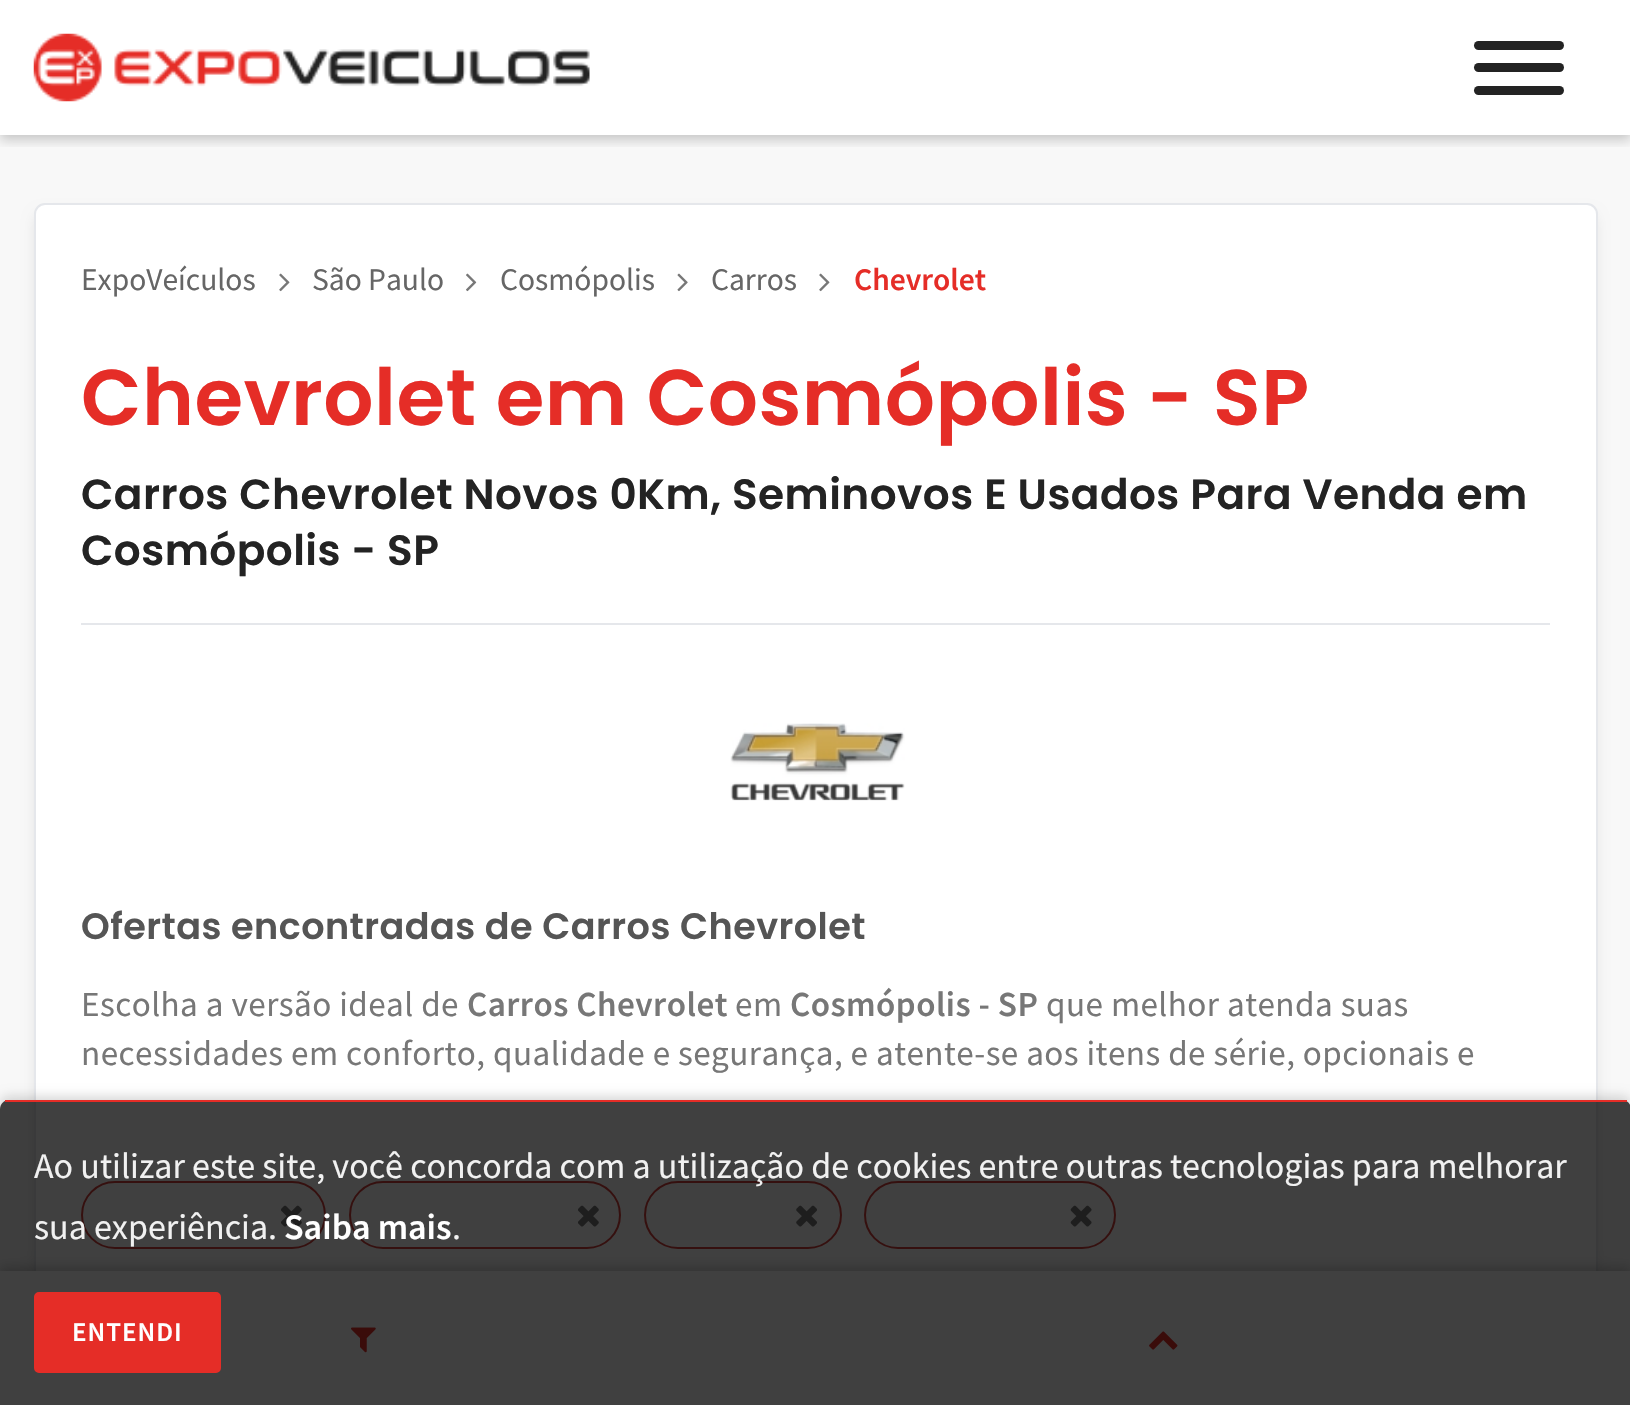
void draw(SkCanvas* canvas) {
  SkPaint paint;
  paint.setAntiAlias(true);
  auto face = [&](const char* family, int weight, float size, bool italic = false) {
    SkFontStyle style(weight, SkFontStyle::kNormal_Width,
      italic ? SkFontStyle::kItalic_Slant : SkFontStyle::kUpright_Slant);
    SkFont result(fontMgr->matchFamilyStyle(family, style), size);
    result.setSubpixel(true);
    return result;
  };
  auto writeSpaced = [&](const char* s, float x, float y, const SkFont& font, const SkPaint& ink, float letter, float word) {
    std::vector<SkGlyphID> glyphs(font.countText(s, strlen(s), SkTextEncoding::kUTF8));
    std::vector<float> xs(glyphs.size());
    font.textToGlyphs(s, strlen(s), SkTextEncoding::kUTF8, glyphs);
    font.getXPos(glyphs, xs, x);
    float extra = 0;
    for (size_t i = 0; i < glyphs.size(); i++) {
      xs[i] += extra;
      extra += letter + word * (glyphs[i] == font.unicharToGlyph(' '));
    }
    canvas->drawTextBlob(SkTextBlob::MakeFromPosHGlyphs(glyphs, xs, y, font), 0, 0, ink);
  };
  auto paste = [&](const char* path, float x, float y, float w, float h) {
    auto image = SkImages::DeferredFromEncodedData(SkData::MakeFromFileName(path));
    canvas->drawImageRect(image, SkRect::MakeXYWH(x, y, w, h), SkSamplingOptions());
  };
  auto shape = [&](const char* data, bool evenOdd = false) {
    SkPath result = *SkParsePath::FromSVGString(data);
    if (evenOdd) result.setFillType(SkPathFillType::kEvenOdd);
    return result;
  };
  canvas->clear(0xffffffff);
  paint.setColor(0xfff8f8f8);
  canvas->drawRect(SkRect::MakeXYWH(0, 135, 1630, 1136), paint);
  canvas->save();
  canvas->clipRect(SkRect::MakeXYWH(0, 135, 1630, 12));
  paint.setColor(0x33000000);
  paint.setMaskFilter(SkMaskFilter::MakeBlur(kNormal_SkBlurStyle, 5.5f));
  canvas->drawRect(SkRect::MakeXYWH(0, 5, 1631, 135), paint);
  paint.setMaskFilter(nullptr);
  canvas->restore();
  paste("img/1.png", 33, 33, 557, 69);
  paint.setColor(0xff232323);
  canvas->drawRoundRect(SkRect::MakeXYWH(1474, 41, 90, 9), 4.5f, 4.5f, paint);
  canvas->drawRoundRect(SkRect::MakeXYWH(1474, 63, 90, 9), 4.5f, 4.5f, paint);
  canvas->drawRoundRect(SkRect::MakeXYWH(1474, 86, 90, 9), 4.5f, 4.5f, paint);
  paint.setColor(0x1a000000);
  paint.setMaskFilter(SkMaskFilter::MakeBlur(kNormal_SkBlurStyle, 7));
  canvas->drawRoundRect(SkRect::MakeXYWH(36, 214, 1559, 1098), 9, 9, paint);
  paint.setMaskFilter(nullptr);
  paint.setColor(0xffffffff);
  canvas->drawRoundRect(SkRect::MakeXYWH(35, 204, 1562, 1100), 10, 10, paint);
  paint.setStroke(true);
  paint.setStrokeWidth(2);
  paint.setColor(0xffe5e7eb);
  canvas->drawRoundRect(SkRect::MakeXYWH(35, 204, 1562, 1100), 10, 10, paint);
  paste("img/2.png", 279, 273, 11, 19);
  paste("img/3.png", 466, 273, 11, 19);
  paste("img/4.png", 677, 273, 11, 19);
  paste("img/2.png", 819, 273, 11, 19);
  paint.setStroke(false);
  canvas->drawRect(SkRect::MakeXYWH(81, 623, 1469, 2), paint);
  paste("img/5.png", 730, 723, 175, 78);
  paint.setStroke(true);
  paint.setColor(0xffd43f3a);
  canvas->drawRoundRect(SkRect::MakeXYWH(82, 1182, 243, 66), 33, 33, paint);
  paste("img/6.png", 281, 1205, 21, 22);
  canvas->drawRoundRect(SkRect::MakeXYWH(350, 1182, 270, 66), 33, 33, paint);
  paste("img/6.png", 578, 1205, 21, 22);
  canvas->drawRoundRect(SkRect::MakeXYWH(645, 1182, 196, 66), 33, 33, paint);
  paste("img/7.png", 796, 1205, 21, 22);
  canvas->drawRoundRect(SkRect::MakeXYWH(865, 1182, 250, 66), 33, 33, paint);
  paste("img/8.png", 1070, 1205, 22, 22);
  paint.setStroke(false);
  paint.setColor(0x33000000);
  paint.setMaskFilter(SkMaskFilter::MakeBlur(kNormal_SkBlurStyle, 5.5f));
  canvas->drawRect(SkRect::MakeXYWH(0, 1267, 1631, 135), paint);
  paint.setMaskFilter(nullptr);
  paint.setColor(0xffffffff);
  canvas->drawRect(SkRect::MakeXYWH(0, 1271, 1630, 134), paint);
  paste("img/9.png", 351, 1327, 25, 26);
  paste("img/10.png", 1149, 1331, 29, 19);
  canvas->save();
  canvas->clipPath(shape("M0 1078H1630V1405H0ZM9 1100H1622C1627 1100 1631 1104 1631 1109V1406H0V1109C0 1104 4 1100 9 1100Z", true), true);
  paint.setColor(0x26000000);
  paint.setMaskFilter(SkMaskFilter::MakeBlur(kNormal_SkBlurStyle, 5.5f));
  canvas->drawRoundRect(SkRect::MakeXYWH(0, 1096, 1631, 306), 9, 9, paint);
  paint.setMaskFilter(nullptr);
  canvas->restore();
  paint.setColor(0xbf000000);
  canvas->drawPath(shape("M9 1100H1622C1627 1100 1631 1104 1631 1109V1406H0V1109C0 1104 4 1100 9 1100Z"), paint);
  paint.setColor(0xffe52d27);
  canvas->drawRect(SkRect::MakeXYWH(5, 1100, 1622, 2), paint);
  canvas->drawRoundRect(SkRect::MakeXYWH(35, 1293, 185, 79), 4, 4, paint);
  paint.setStroke(true);
  canvas->drawRoundRect(SkRect::MakeXYWH(35, 1293, 185, 79), 4, 4, paint);
  auto f0 = face("Source Sans Pro", 400, 31.5f);
  paint.setStroke(false);
  paint.setColor(0xff666666);
  {
    const struct { const char* s; float x, y; } items[] = {
      {"ExpoVeículos", 81, 290},
      {"São Paulo", 312, 290},
      {"Cosmópolis", 500, 290},
      {"Carros", 711, 290},
    };
    for (auto [s, x, y] : items) {
      canvas->drawString(s, x, y, f0, paint);
    }
  }
  auto f1 = face("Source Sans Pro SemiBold", 600, 31.5f);
  paint.setColor(0xffe52d27);
  canvas->drawString("Chevrolet", 854, 290, f1, paint);
  auto f2 = face("Poppins", 600, 78.75f);
  writeSpaced("Chevrolet em Cosmópolis - SP", 81, 425, f2, paint, 0.45f, 0);
  auto f3 = face("Poppins", 600, 42.2f);
  paint.setColor(0xff232323);
  writeSpaced("Carros Chevrolet Novos 0Km, Seminovos E Usados Para Venda em", 81, 509, f3, paint, 0.45f, 0);
  writeSpaced("Cosmópolis - SP", 81, 565, f3, paint, 0.45f, 0);
  auto f4 = face("Poppins", 600, 36.6f);
  paint.setColor(0xff555555);
  writeSpaced("Ofertas encontradas de Carros Chevrolet", 81, 939, f4, paint, 0.45f, 0);
  auto f5 = face("Source Sans Pro", 400, 35.15f);
  paint.setColor(0xff777777);
  writeSpaced("Escolha a versão ideal de", 81, 1016, f5, paint, 0.45f, 0);
  auto f6 = face("Source Sans Pro SemiBold", 600, 35.15f);
  writeSpaced("Carros Chevrolet", 467, 1016, f6, paint, 0.45f, 0);
  writeSpaced("em", 735, 1016, f5, paint, 0.45f, 0);
  writeSpaced("Cosmópolis - SP", 790, 1016, f6, paint, 0.45f, 0);
  writeSpaced("que melhor atenda suas", 1046, 1016, f5, paint, 0.45f, 0);
  writeSpaced("necessidades em conforto, qualidade e segurança, e atente-se aos itens de série, opcionais e", 81, 1065, f5, paint, 0.45f, 0);
  auto f7 = face("Source Sans Pro", 400, 36);
  paint.setColor(0xfff1f1f1);
  canvas->drawString("Ao utilizar este site, você concorda com a utilização de cookies entre outras tecnologias para melhorar", 34, 1178, f7, paint);
  canvas->drawString("sua experiência.", 34, 1239, f7, paint);
  auto f8 = face("Source Sans Pro SemiBold", 600, 36);
  paint.setColor(0xffffffff);
  canvas->drawString("Saiba mais", 284, 1239, f8, paint);
  paint.setColor(0xfff1f1f1);
  canvas->drawString(".", 452, 1239, f7, paint);
  auto f9 = face("Source Sans Pro SemiBold", 600, 27);
  paint.setColor(0xffffffff);
  writeSpaced("ENTENDI", 72, 1341, f9, paint, 1, 0);
}
